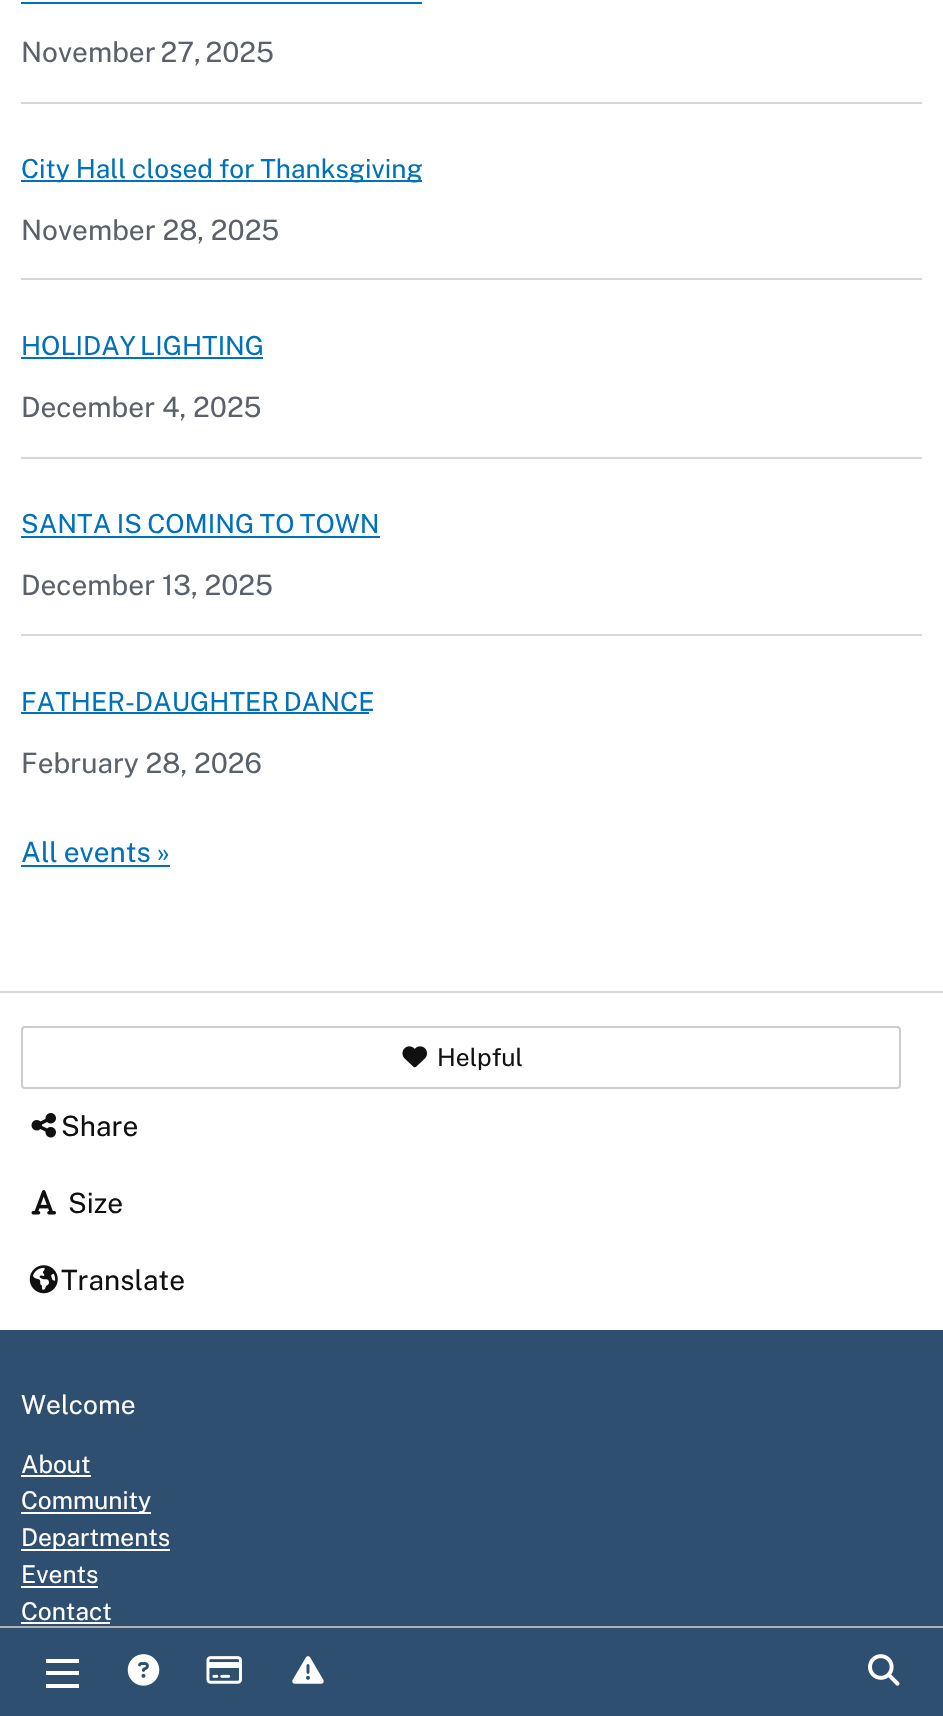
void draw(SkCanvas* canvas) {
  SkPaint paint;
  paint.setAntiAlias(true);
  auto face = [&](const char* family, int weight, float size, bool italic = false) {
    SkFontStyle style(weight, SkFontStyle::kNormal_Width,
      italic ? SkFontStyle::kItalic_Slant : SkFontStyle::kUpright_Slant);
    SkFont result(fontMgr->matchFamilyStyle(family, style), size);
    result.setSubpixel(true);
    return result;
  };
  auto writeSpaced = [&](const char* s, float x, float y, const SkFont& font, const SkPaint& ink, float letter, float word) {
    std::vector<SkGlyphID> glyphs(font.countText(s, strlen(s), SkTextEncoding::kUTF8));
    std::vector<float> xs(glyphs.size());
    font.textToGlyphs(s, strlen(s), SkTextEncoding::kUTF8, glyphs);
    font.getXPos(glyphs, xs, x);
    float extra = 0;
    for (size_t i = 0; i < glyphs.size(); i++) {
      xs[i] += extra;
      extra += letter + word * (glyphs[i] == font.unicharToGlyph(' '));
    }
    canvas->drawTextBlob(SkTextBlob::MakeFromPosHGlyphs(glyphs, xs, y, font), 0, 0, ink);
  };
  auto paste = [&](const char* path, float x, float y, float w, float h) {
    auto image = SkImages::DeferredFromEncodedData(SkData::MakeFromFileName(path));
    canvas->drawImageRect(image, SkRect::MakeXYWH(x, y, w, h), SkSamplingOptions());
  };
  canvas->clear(0xffffffff);
  {
    const struct { float x, y, w, h; SkColor color; } items[] = {
      {21, 2, 401, 2, 0xff0071bc},
      {21, 102, 901, 2, 0xffd6d7d9},
      {21, 180, 401, 2, 0xff0071bc},
      {21, 278, 901, 2, 0xffd6d7d9},
      {21, 357, 242, 2, 0xff0071bc},
      {21, 457, 901, 2, 0xffd6d7d9},
      {21, 536, 359, 2, 0xff0071bc},
      {21, 634, 901, 2, 0xffd6d7d9},
      {21, 712, 348, 2, 0xff0071bc},
      {21, 865, 149, 2, 0xff0071bc},
      {0, 991, 943, 2, 0xffd6d7d9},
    };
    for (auto [x, y, w, h, color] : items) {
      paint.setColor(color);
      canvas->drawRect(SkRect::MakeXYWH(x, y, w, h), paint);
    }
  }
  paint.setStroke(true);
  paint.setStrokeWidth(2);
  paint.setColor(0xffcccccc);
  canvas->drawRoundRect(SkRect::MakeXYWH(22, 1027, 878, 61), 3, 3, paint);
  paste("img/1.png", 402, 1046, 25, 22);
  paste("img/2.png", 31, 1113, 25, 25);
  paste("img/3.png", 31, 1190, 25, 25);
  paste("img/4.png", 29, 1265, 29, 29);
  paint.setStroke(false);
  {
    const struct { float x, y, w, h; SkColor color; } items[] = {
      {0, 1330, 943, 296, 0xff2f4f70},
      {21, 1475, 70, 2, 0xffffffff},
      {21, 1512, 130, 2, 0xffffffff},
      {21, 1549, 149, 2, 0xffffffff},
      {21, 1586, 77, 2, 0xffffffff},
      {21, 1622, 89, 2, 0xffffffff},
      {0, 1628, 943, 88, 0xff2f4f70},
      {0, 1626, 943, 2, 0xffaeb0b5},
    };
    for (auto [x, y, w, h, color] : items) {
      paint.setColor(color);
      canvas->drawRect(SkRect::MakeXYWH(x, y, w, h), paint);
    }
  }
  paste("img/5.png", 127, 1654, 33, 32);
  paste("img/6.png", 206, 1656, 36, 28);
  paste("img/7.png", 292, 1656, 32, 28);
  paste("img/8.png", 868, 1654, 32, 32);
  {
    const struct { float x, y, w, h; SkColor color; } items[] = {
      {46, 1671, 33, 4, 0xffffffff},
      {46, 1659, 33, 4, 0xffffffff},
      {46, 1684, 33, 4, 0xffffffff},
    };
    for (auto [x, y, w, h, color] : items) {
      paint.setColor(color);
      canvas->drawRect(SkRect::MakeXYWH(x, y, w, h), paint);
    }
  }
  auto f0 = face("Public Sans", 400, 28);
  paint.setColor(0xff5b616b);
  writeSpaced("November 27, 2025", 21, 62, f0, paint, 0, -2);
  auto f1 = face("Public Sans", 400, 26.25f);
  paint.setColor(0xff0071bc);
  writeSpaced("City Hall closed for Thanksgiving", 21, 178, f1, paint, 0, -0.5f);
  paint.setColor(0xff5b616b);
  canvas->drawString("November 28, 2025", 21, 240, f0, paint);
  paint.setColor(0xff0071bc);
  writeSpaced("HOLIDAY LIGHTING", 21, 355, f1, paint, 0, -2);
  paint.setColor(0xff5b616b);
  canvas->drawString("December 4, 2025", 21, 417, f0, paint);
  paint.setColor(0xff0071bc);
  writeSpaced("SANTA IS COMING TO TOWN", 21, 533, f1, paint, 0, -1);
  paint.setColor(0xff5b616b);
  canvas->drawString("December 13, 2025", 21, 595, f0, paint);
  paint.setColor(0xff0071bc);
  writeSpaced("FATHER-DAUGHTER DANCE", 21, 711, f1, paint, 0, -2);
  paint.setColor(0xff5b616b);
  canvas->drawString("February 28, 2026", 21, 773, f0, paint);
  paint.setColor(0xff0071bc);
  writeSpaced("All events »", 21, 862, f0, paint, 0, -1);
  auto f2 = face("Public Sans", 400, 24.5f);
  paint.setColor(0xff101010);
  canvas->drawString("Helpful", 437, 1066, f2, paint);
  {
    const struct { const char* s; float x, y; } items[] = {
      {"Share", 61, 1136},
      {"Size", 68, 1213},
      {"Translate", 61, 1290},
    };
    for (auto [s, x, y] : items) {
      canvas->drawString(s, x, y, f0, paint);
    }
  }
  paint.setColor(0xffffffff);
  canvas->drawString("Welcome", 21, 1414, f1, paint);
  {
    const struct { const char* s; float x, y; } items[] = {
      {"About", 21, 1473},
      {"Community", 21, 1509},
      {"Departments", 21, 1546},
      {"Events", 21, 1583},
      {"Contact", 21, 1620},
    };
    for (auto [s, x, y] : items) {
      canvas->drawString(s, x, y, f2, paint);
    }
  }
}
